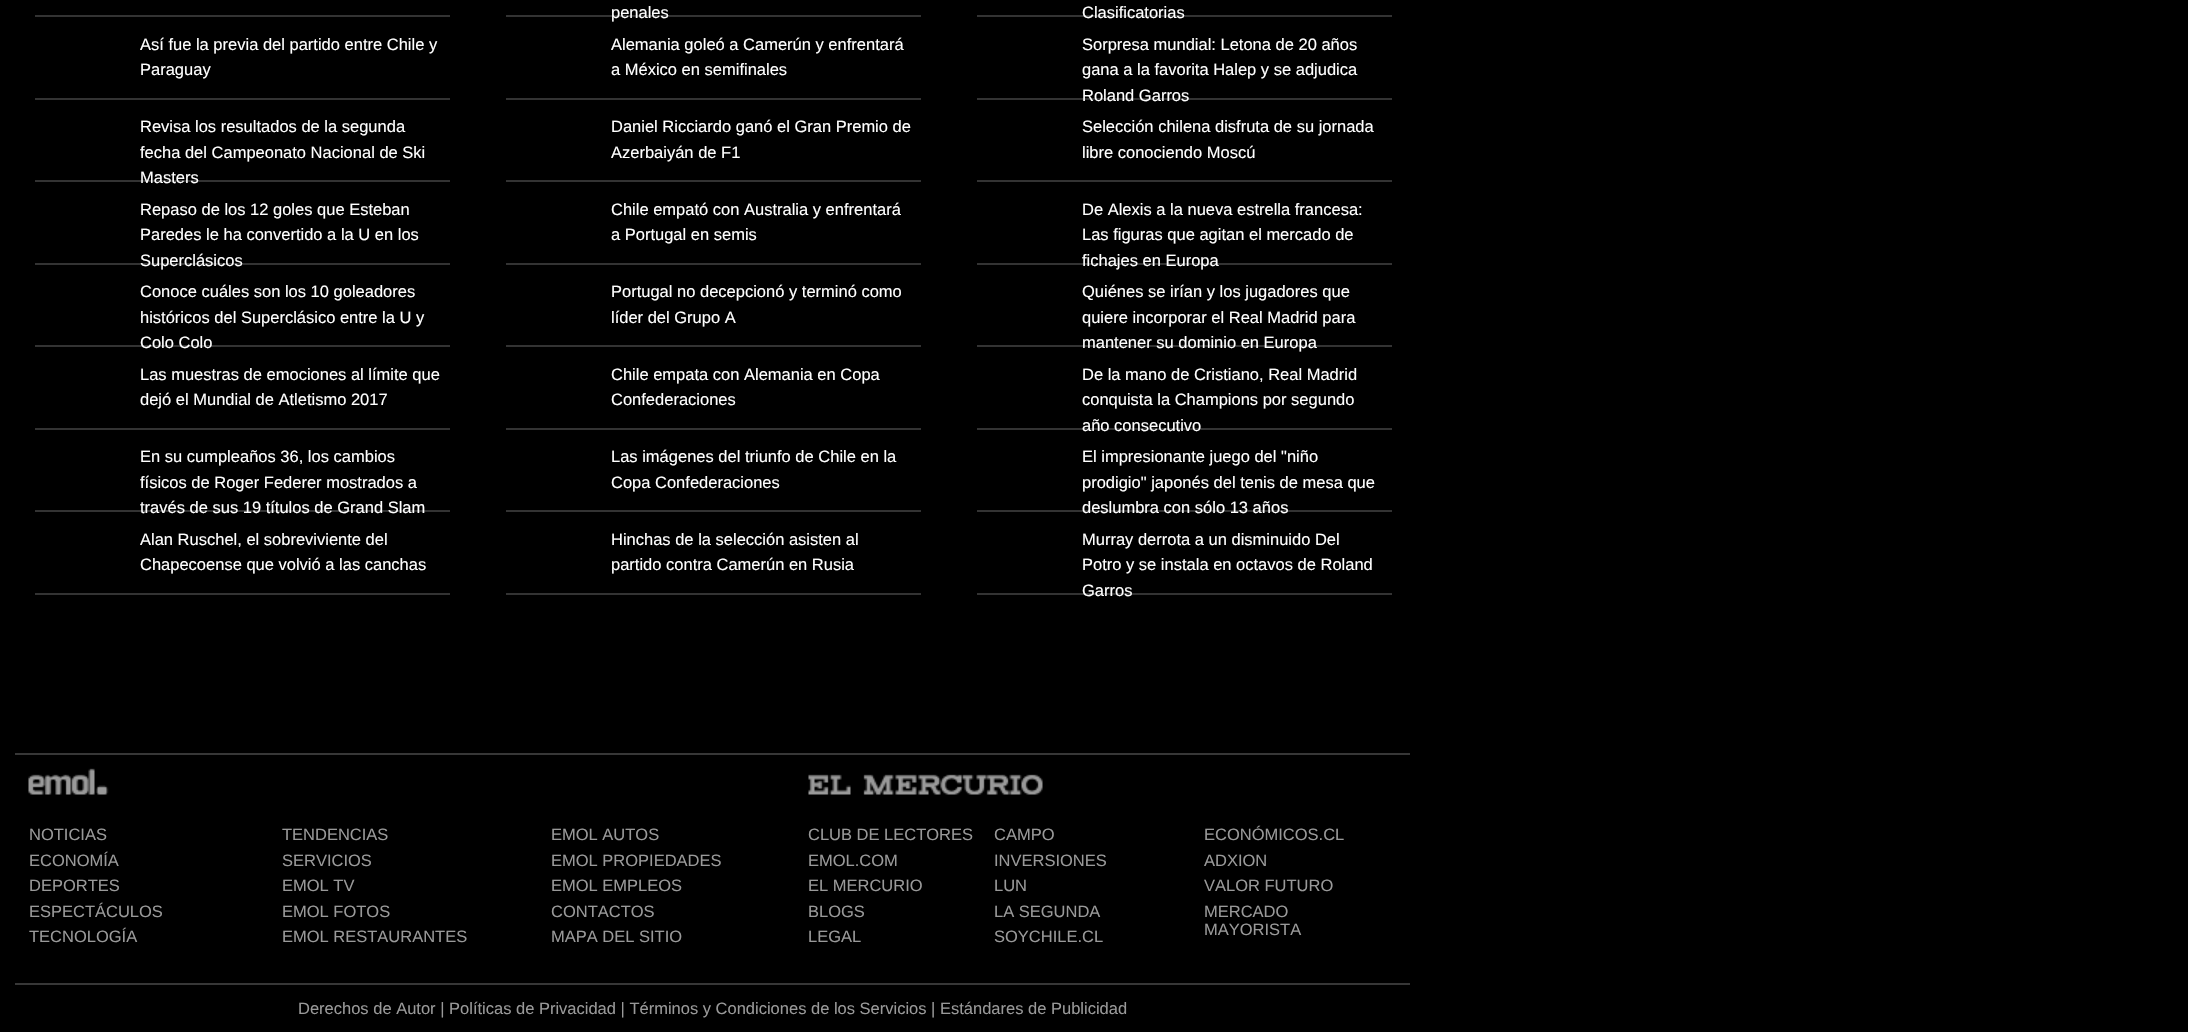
void draw(SkCanvas* canvas) {
  SkPaint paint;
  paint.setAntiAlias(true);
  auto face = [&](const char* family, int weight, float size, bool italic = false) {
    SkFontStyle style(weight, SkFontStyle::kNormal_Width,
      italic ? SkFontStyle::kItalic_Slant : SkFontStyle::kUpright_Slant);
    SkFont result(fontMgr->matchFamilyStyle(family, style), size);
    result.setSubpixel(true);
    return result;
  };
  auto paste = [&](const char* path, float x, float y, float w, float h) {
    auto image = SkImages::DeferredFromEncodedData(SkData::MakeFromFileName(path));
    canvas->drawImageRect(image, SkRect::MakeXYWH(x, y, w, h), SkSamplingOptions());
  };
  canvas->clear(0xff000000);
  {
    const struct { float x, y, w, h; SkColor color; } items[] = {
      {35, 15, 415, 2, 0xff333333},
      {506, 15, 415, 2, 0xff333333},
      {977, 15, 415, 2, 0xff333333},
      {35, 98, 415, 2, 0xff333333},
      {506, 98, 415, 2, 0xff333333},
      {977, 98, 415, 2, 0xff333333},
      {35, 180, 415, 2, 0xff333333},
      {506, 180, 415, 2, 0xff333333},
      {977, 180, 415, 2, 0xff333333},
      {35, 263, 415, 2, 0xff333333},
      {506, 263, 415, 2, 0xff333333},
      {977, 263, 415, 2, 0xff333333},
      {35, 345, 415, 2, 0xff333333},
      {506, 345, 415, 2, 0xff333333},
      {977, 345, 415, 2, 0xff333333},
      {35, 428, 415, 2, 0xff333333},
      {506, 428, 415, 2, 0xff333333},
      {977, 428, 415, 2, 0xff333333},
      {35, 510, 415, 2, 0xff333333},
      {506, 510, 415, 2, 0xff333333},
      {977, 510, 415, 2, 0xff333333},
      {35, 593, 415, 2, 0xff333333},
      {506, 593, 415, 2, 0xff333333},
      {977, 593, 415, 2, 0xff333333},
      {15, 753, 1395, 2, 0xff373737},
    };
    for (auto [x, y, w, h, color] : items) {
      paint.setColor(color);
      canvas->drawRect(SkRect::MakeXYWH(x, y, w, h), paint);
    }
  }
  paste("img/1.png", 28, 768, 81, 27);
  paste("img/2.png", 808, 774, 235, 21);
  canvas->drawRect(SkRect::MakeXYWH(15, 983, 1395, 2), paint);
  auto f0 = face("Liberation Sans", 400, 16.5f);
  paint.setColor(0xffffffff);
  {
    const struct { const char* s; float x, y; } items[] = {
      {"penales", 611, 18},
      {"Clasificatorias", 1082, 18},
      {"Así fue la previa del partido entre Chile y", 140, 50},
      {"Paraguay", 140, 75},
      {"Alemania goleó a Camerún y enfrentará", 611, 50},
      {"a México en semifinales", 611, 75},
      {"Sorpresa mundial: Letona de 20 años", 1082, 50},
      {"gana a la favorita Halep y se adjudica", 1082, 75},
      {"Roland Garros", 1082, 101},
      {"Revisa los resultados de la segunda", 140, 132},
      {"fecha del Campeonato Nacional de Ski", 140, 158},
      {"Masters", 140, 183},
      {"Daniel Ricciardo ganó el Gran Premio de", 611, 132},
      {"Azerbaiyán de F1", 611, 158},
      {"Selección chilena disfruta de su jornada", 1082, 132},
      {"libre conociendo Moscú", 1082, 158},
      {"Repaso de los 12 goles que Esteban", 140, 215},
      {"Paredes le ha convertido a la U en los", 140, 240},
      {"Superclásicos", 140, 266},
      {"Chile empató con Australia y enfrentará", 611, 215},
      {"a Portugal en semis", 611, 240},
      {"De Alexis a la nueva estrella francesa:", 1082, 215},
      {"Las figuras que agitan el mercado de", 1082, 240},
      {"fichajes en Europa", 1082, 266},
      {"Conoce cuáles son los 10 goleadores", 140, 297},
      {"históricos del Superclásico entre la U y", 140, 323},
      {"Colo Colo", 140, 348},
      {"Portugal no decepcionó y terminó como", 611, 297},
      {"líder del Grupo A", 611, 323},
      {"Quiénes se irían y los jugadores que", 1082, 297},
      {"quiere incorporar el Real Madrid para", 1082, 323},
      {"mantener su dominio en Europa", 1082, 348},
      {"Las muestras de emociones al límite que", 140, 380},
      {"dejó el Mundial de Atletismo 2017", 140, 405},
      {"Chile empata con Alemania en Copa", 611, 380},
      {"Confederaciones", 611, 405},
      {"De la mano de Cristiano, Real Madrid", 1082, 380},
      {"conquista la Champions por segundo", 1082, 405},
      {"año consecutivo", 1082, 431},
      {"En su cumpleaños 36, los cambios", 140, 462},
      {"físicos de Roger Federer mostrados a", 140, 488},
      {"través de sus 19 títulos de Grand Slam", 140, 513},
      {"Las imágenes del triunfo de Chile en la", 611, 462},
      {"Copa Confederaciones", 611, 488},
      {"El impresionante juego del \"niño", 1082, 462},
      {"prodigio\" japonés del tenis de mesa que", 1082, 488},
      {"deslumbra con sólo 13 años", 1082, 513},
      {"Alan Ruschel, el sobreviviente del", 140, 545},
      {"Chapecoense que volvió a las canchas", 140, 570},
      {"Hinchas de la selección asisten al", 611, 545},
      {"partido contra Camerún en Rusia", 611, 570},
      {"Murray derrota a un disminuido Del", 1082, 545},
      {"Potro y se instala en octavos de Roland", 1082, 570},
      {"Garros", 1082, 596},
    };
    for (auto [s, x, y] : items) {
      canvas->drawString(s, x, y, f0, paint);
    }
  }
  paint.setColor(0xff999999);
  {
    const struct { const char* s; float x, y; } items[] = {
      {"NOTICIAS", 29, 840},
      {"ECONOMÍA", 29, 866},
      {"DEPORTES", 29, 891},
      {"ESPECTÁCULOS", 29, 917},
      {"TECNOLOGÍA", 29, 942},
      {"TENDENCIAS", 282, 840},
      {"SERVICIOS", 282, 866},
      {"EMOL TV", 282, 891},
      {"EMOL FOTOS", 282, 917},
      {"EMOL RESTAURANTES", 282, 942},
      {"EMOL AUTOS", 551, 840},
      {"EMOL PROPIEDADES", 551, 866},
      {"EMOL EMPLEOS", 551, 891},
      {"CONTACTOS", 551, 917},
      {"MAPA DEL SITIO", 551, 942},
      {"CLUB DE LECTORES", 808, 840},
      {"EMOL.COM", 808, 866},
      {"EL MERCURIO", 808, 891},
      {"BLOGS", 808, 917},
      {"LEGAL", 808, 942},
      {"CAMPO", 994, 840},
      {"INVERSIONES", 994, 866},
      {"LUN", 994, 891},
      {"LA SEGUNDA", 994, 917},
      {"SOYCHILE.CL", 994, 942},
      {"ECONÓMICOS.CL", 1204, 840},
      {"ADXION", 1204, 866},
      {"VALOR FUTURO", 1204, 891},
      {"MERCADO", 1204, 917},
      {"MAYORISTA", 1204, 935},
      {"Derechos de Autor | Políticas de Privacidad | Términos y Condiciones de los Servicios | Estándares de Publicidad", 298, 1014},
    };
    for (auto [s, x, y] : items) {
      canvas->drawString(s, x, y, f0, paint);
    }
  }
}
